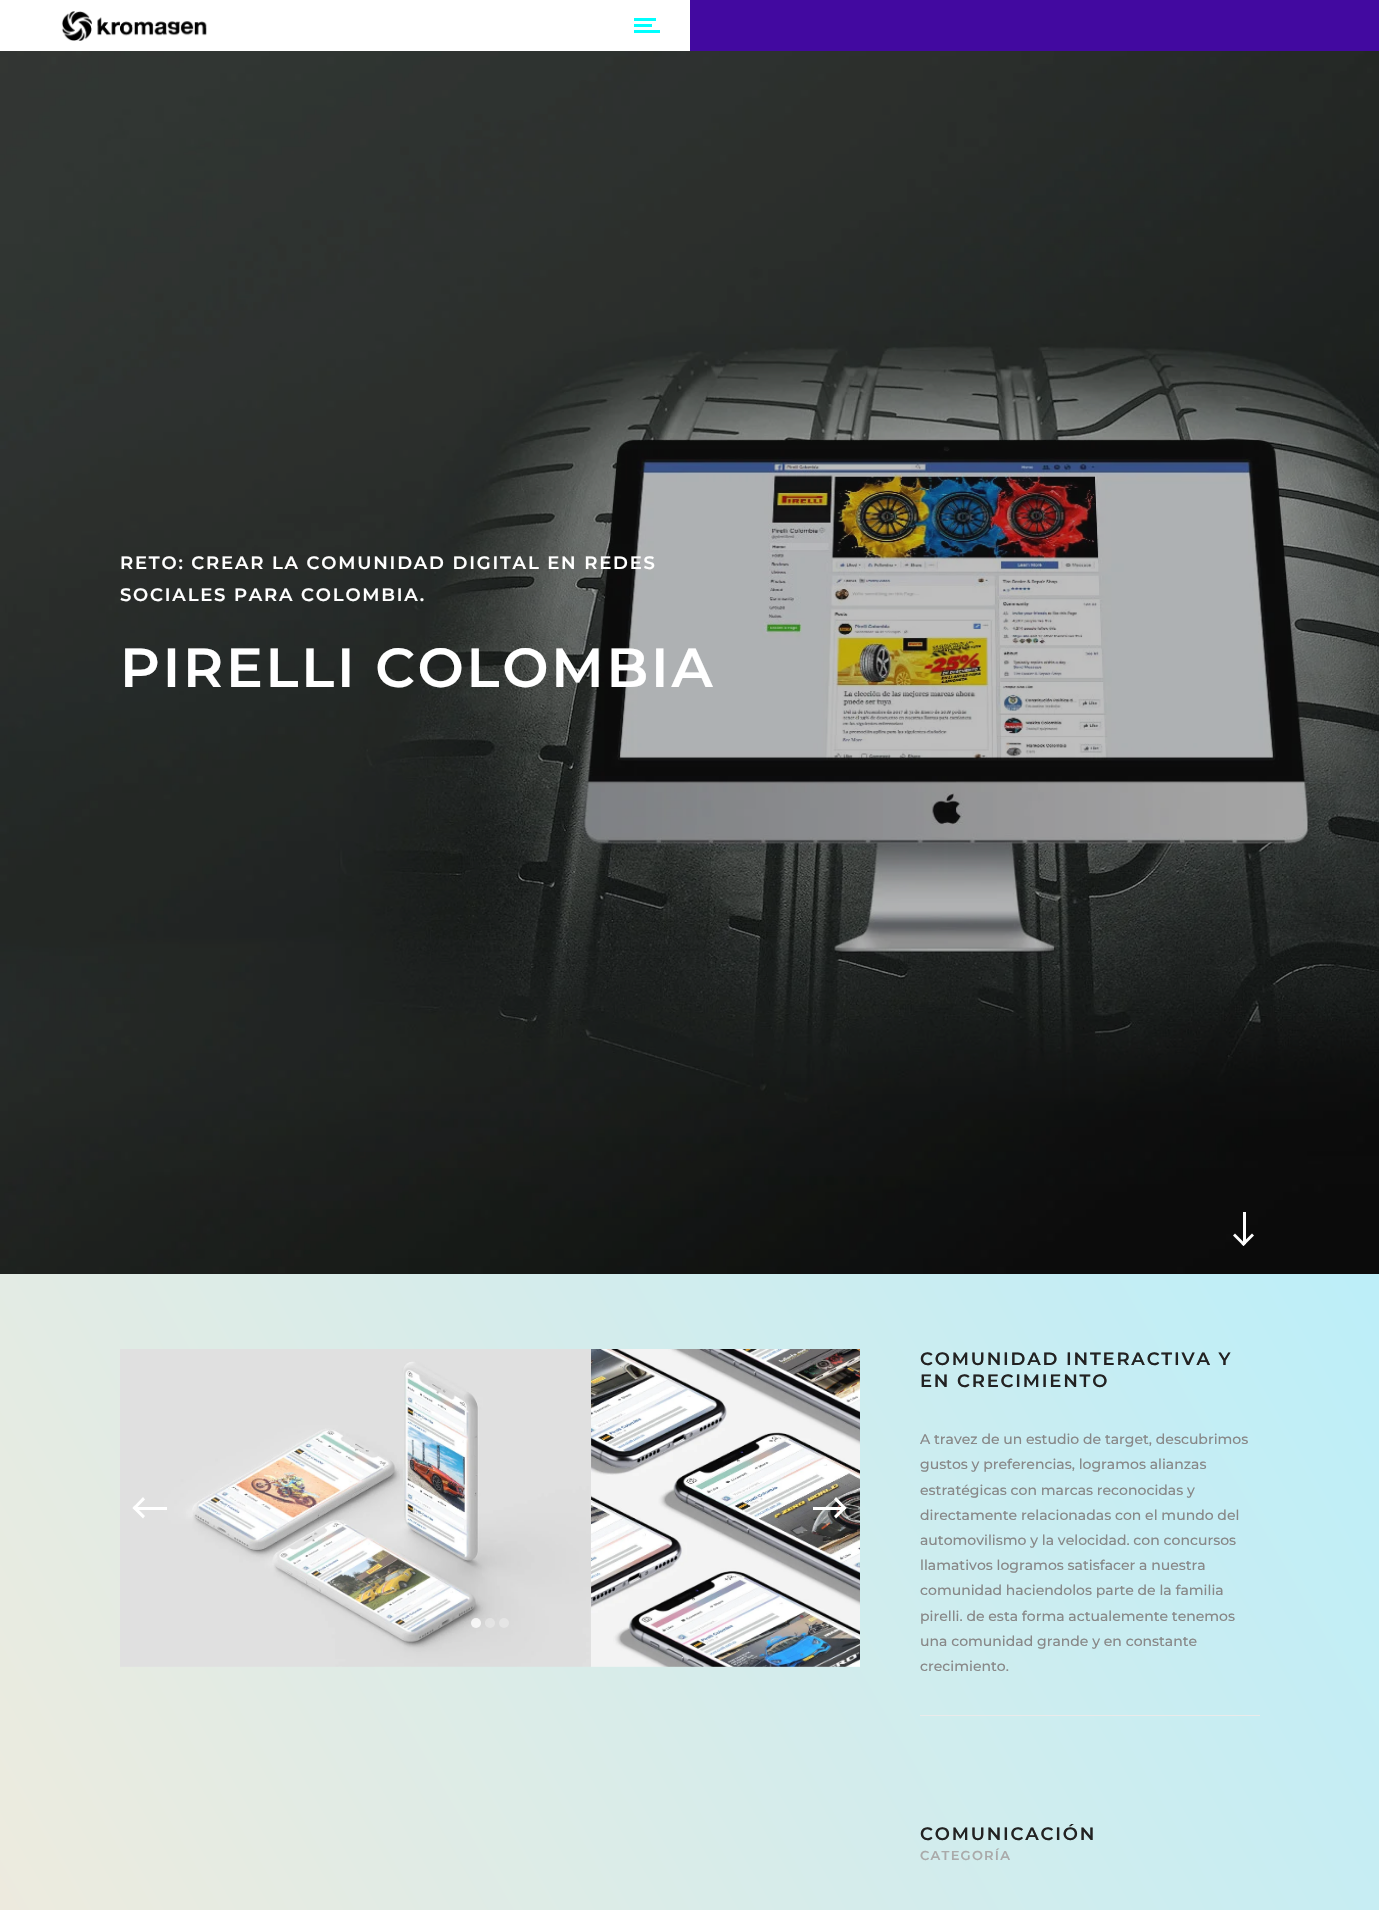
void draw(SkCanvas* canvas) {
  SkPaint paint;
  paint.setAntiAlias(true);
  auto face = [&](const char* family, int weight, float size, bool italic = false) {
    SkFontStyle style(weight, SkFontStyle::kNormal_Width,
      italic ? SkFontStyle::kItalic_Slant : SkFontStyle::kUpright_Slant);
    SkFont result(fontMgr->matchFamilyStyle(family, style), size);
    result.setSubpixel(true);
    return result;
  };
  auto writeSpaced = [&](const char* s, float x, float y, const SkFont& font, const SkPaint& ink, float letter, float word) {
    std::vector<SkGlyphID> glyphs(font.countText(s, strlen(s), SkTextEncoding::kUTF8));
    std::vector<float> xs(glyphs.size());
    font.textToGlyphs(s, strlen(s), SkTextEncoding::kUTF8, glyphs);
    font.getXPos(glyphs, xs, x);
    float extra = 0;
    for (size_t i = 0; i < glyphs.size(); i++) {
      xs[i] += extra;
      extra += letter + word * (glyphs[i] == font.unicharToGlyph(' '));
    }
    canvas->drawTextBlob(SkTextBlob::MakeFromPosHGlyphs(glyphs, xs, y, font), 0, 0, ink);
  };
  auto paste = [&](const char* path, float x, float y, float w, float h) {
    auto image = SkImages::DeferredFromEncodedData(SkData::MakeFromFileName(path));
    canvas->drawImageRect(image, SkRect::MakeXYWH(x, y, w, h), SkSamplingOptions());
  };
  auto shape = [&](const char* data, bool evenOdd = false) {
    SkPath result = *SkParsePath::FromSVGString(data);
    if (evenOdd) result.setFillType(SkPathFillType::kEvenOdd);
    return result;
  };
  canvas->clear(0xffffffff);
  paint.setColor(0xff4209a0);
  canvas->drawRect(SkRect::MakeXYWH(690, 0, 689, 51), paint);
  paste("img/1.png", 61, 11, 146, 30);
  {
    const struct { float x, y, w, h; SkColor color; } items[] = {
      {634, 30, 26, 3, 0xff00ffff},
      {634, 18, 22, 3, 0xff00ffff},
      {634, 24, 18, 3, 0xff00ffff},
    };
    for (auto [x, y, w, h, color] : items) {
      paint.setColor(color);
      canvas->drawRect(SkRect::MakeXYWH(x, y, w, h), paint);
    }
  }
  paste("img/2.png", 0, 51, 1379, 1223);
  paint.setColor(0xffffffff);
  canvas->drawRect(SkRect::MakeXYWH(1243, 1212, 3, 32), paint);
  canvas->drawPath(shape("M1254 1235.5L1243.5 1246L1241.5 1244L1252 1233.5Z"), paint);
  canvas->drawPath(shape("M1245.5 1244L1243.5 1246L1233 1235.5L1235 1233.5Z"), paint);
  {
    const SkColor colors[] = {0xfff3eadb, 0xffbdeef8};
    const float stops[] = {0, 0.99f};
    const SkPoint ends[] = {{-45, 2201}, {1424, 1353}};
    paint.setShader(SkGradientShader::MakeLinear(ends, colors, stops, 2, SkTileMode::kClamp));
    paint.setAlpha(255);
  }
  canvas->drawRect(SkRect::MakeXYWH(0, 1274, 1379, 636), paint);
  paste("img/3.png", 120, 1349, 471, 318);
  paste("img/4.png", 591, 1349, 269, 318);
  paint.setShader(nullptr);
  paint.setColor(0xffffffff);
  canvas->drawRect(SkRect::MakeXYWH(135, 1507, 32, 3), paint);
  canvas->drawPath(shape("M143 1518.5L132.5 1508L134.5 1505.5L145 1516Z"), paint);
  canvas->drawPath(shape("M134.5 1510L132.5 1508L143 1497L145 1499.5Z"), paint);
  canvas->drawRect(SkRect::MakeXYWH(813, 1507, 32, 3), paint);
  canvas->drawPath(shape("M836 1497L846.5 1508L844.5 1510L834 1499.5Z"), paint);
  canvas->drawPath(shape("M844.5 1505.5L846.5 1508L836 1518.5L834 1516Z"), paint);
  paint.setColor(0xccffffff);
  canvas->drawCircle(476, 1623, 5, paint);
  paint.setColor(0x4dffffff);
  canvas->drawCircle(490, 1623, 5, paint);
  paint.setColor(0xffe5e5e5);
  canvas->drawCircle(504, 1623, 5, paint);
  paint.setColor(0xffebebeb);
  canvas->drawRect(SkRect::MakeXYWH(920, 1715, 340, 1), paint);
  auto f0 = face("Montserrat", 600, 18);
  paint.setColor(0xffffffff);
  writeSpaced("RETO: CREAR LA COMUNIDAD DIGITAL EN REDES", 120, 569, f0, paint, 1.8f, 0);
  writeSpaced("SOCIALES PARA COLOMBIA.", 120, 601, f0, paint, 1.8f, 0);
  auto f1 = face("Montserrat", 600, 55);
  writeSpaced("PIRELLI COLOMBIA", 120, 687, f1, paint, 2.75f, 0);
  paint.setColor(0xff222222);
  writeSpaced("COMUNIDAD INTERACTIVA Y", 920, 1365, f0, paint, 1.8f, 0);
  writeSpaced("EN CRECIMIENTO", 920, 1387, f0, paint, 1.8f, 0);
  auto f2 = face("Montserrat", 500, 14);
  paint.setColor(0xff888888);
  {
    const struct { const char* s; float x, y; } items[] = {
      {"A travez de un estudio de target, descubrimos", 920, 1444},
      {"gustos y preferencias, logramos alianzas", 920, 1469},
      {"estratégicas con marcas reconocidas y", 920, 1495},
      {"directamente relacionadas con el mundo del", 920, 1520},
      {"automovilismo y la velocidad. con concursos", 920, 1545},
      {"llamativos logramos satisfacer a nuestra", 920, 1570},
      {"comunidad haciendolos parte de la familia", 920, 1595},
      {"pirelli. de esta forma actualemente tenemos", 920, 1621},
      {"una comunidad grande y en constante", 920, 1646},
      {"crecimiento.", 920, 1671},
    };
    for (auto [s, x, y] : items) {
      canvas->drawString(s, x, y, f2, paint);
    }
  }
  paint.setColor(0xff222222);
  writeSpaced("COMUNICACIÓN", 920, 1840, f0, paint, 1.8f, 0);
  auto f3 = face("Montserrat", 600, 13);
  paint.setColor(0xffaaaaaa);
  writeSpaced("CATEGORÍA", 920, 1860, f3, paint, 1.25f, 0);
}
